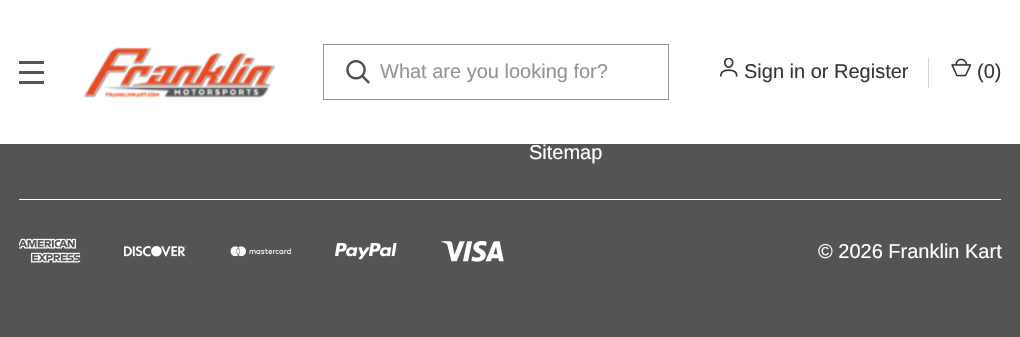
void draw(SkCanvas* canvas) {
  SkPaint paint;
  paint.setAntiAlias(true);
  auto face = [&](const char* family, int weight, float size, bool italic = false) {
    SkFontStyle style(weight, SkFontStyle::kNormal_Width,
      italic ? SkFontStyle::kItalic_Slant : SkFontStyle::kUpright_Slant);
    SkFont result(fontMgr->matchFamilyStyle(family, style), size);
    result.setSubpixel(true);
    return result;
  };
  auto paste = [&](const char* path, float x, float y, float w, float h) {
    auto image = SkImages::DeferredFromEncodedData(SkData::MakeFromFileName(path));
    canvas->drawImageRect(image, SkRect::MakeXYWH(x, y, w, h), SkSamplingOptions());
  };
  canvas->clear(0xff545454);
  {
    const struct { float x, y, w, h; SkColor color; } items[] = {
      {0, 0, 1020, 144, 0xffffffff},
      {19, 71, 25, 3, 0xff545454},
      {19, 61, 25, 3, 0xff545454},
      {19, 81, 25, 3, 0xff545454},
    };
    for (auto [x, y, w, h, color] : items) {
      paint.setColor(color);
      canvas->drawRect(SkRect::MakeXYWH(x, y, w, h), paint);
    }
  }
  paste("img/1.png", 83, 47, 193, 51);
  paint.setStroke(true);
  paint.setStrokeWidth(1);
  paint.setColor(0xff949494);
  canvas->drawRect(SkRect::MakeXYWH(323.5f, 44.5f, 345, 55), paint);
  paste("img/2.png", 346, 60, 24, 24);
  paste("img/3.png", 719, 58, 19, 19);
  paint.setStroke(false);
  paint.setColor(0xffd2d2d2);
  canvas->drawRect(SkRect::MakeXYWH(928, 58, 1, 30), paint);
  paste("img/4.png", 951, 58, 20, 19);
  paint.setColor(0xffffffff);
  canvas->drawRect(SkRect::MakeXYWH(19, 199, 982, 1), paint);
  paste("img/5.png", 19, 238, 62, 25);
  paste("img/6.png", 124, 246, 62, 11);
  paste("img/7.png", 230, 246, 63, 11);
  paste("img/8.png", 335, 243, 62, 17);
  paste("img/9.png", 441, 241, 63, 21);
  auto f0 = face("Liberation Sans", 400, 20);
  paint.setColor(0xff949494);
  canvas->drawString("What are you looking for?", 380, 78, f0, paint);
  paint.setColor(0xff353535);
  canvas->drawString("Sign in or Register", 744, 78, f0, paint);
  canvas->drawString("(0)", 977, 78, f0, paint);
  paint.setColor(0xffffffff);
  canvas->drawString("Sitemap", 529, 159, f0, paint);
  canvas->drawString("© 2026 Franklin Kart", 818, 258, f0, paint);
}
